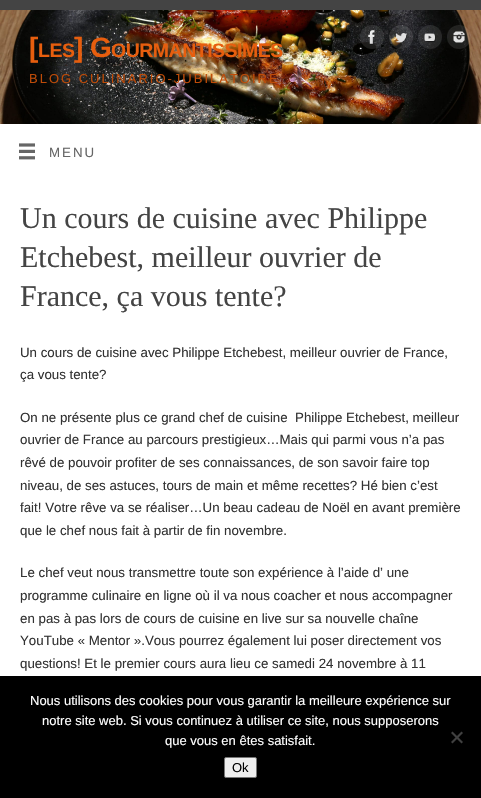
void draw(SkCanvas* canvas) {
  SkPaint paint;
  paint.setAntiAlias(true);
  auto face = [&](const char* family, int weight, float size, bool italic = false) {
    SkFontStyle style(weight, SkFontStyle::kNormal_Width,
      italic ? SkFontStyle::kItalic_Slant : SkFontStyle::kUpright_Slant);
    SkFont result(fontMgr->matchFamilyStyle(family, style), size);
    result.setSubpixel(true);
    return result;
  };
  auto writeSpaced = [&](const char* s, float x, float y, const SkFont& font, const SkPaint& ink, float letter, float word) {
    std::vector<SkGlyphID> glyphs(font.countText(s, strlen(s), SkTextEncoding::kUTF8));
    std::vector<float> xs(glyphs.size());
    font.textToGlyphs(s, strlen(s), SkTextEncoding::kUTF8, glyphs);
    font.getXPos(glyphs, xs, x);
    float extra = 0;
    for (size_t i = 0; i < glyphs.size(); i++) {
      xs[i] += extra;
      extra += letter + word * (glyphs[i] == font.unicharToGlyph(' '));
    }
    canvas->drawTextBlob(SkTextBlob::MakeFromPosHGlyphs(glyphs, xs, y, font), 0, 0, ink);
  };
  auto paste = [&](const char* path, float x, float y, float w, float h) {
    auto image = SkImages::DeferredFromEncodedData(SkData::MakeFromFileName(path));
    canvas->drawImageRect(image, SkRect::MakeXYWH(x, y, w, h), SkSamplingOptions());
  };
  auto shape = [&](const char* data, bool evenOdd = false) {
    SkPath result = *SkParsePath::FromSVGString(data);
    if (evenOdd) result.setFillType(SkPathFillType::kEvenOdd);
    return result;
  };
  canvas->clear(0xff444444);
  paste("img/1.png", 0, 10, 481, 114);
  paint.setColor(0x1affffff);
  canvas->drawCircle(372, 37, 12, paint);
  paste("img/2.png", 368, 30, 7, 15);
  canvas->drawCircle(401, 37, 12, paint);
  paste("img/3.png", 395, 33, 13, 10);
  canvas->drawCircle(430, 37, 12, paint);
  paste("img/4.png", 424, 33, 12, 9);
  canvas->drawCircle(459, 37, 12, paint);
  paste("img/5.png", 453, 31, 12, 12);
  paint.setColor(0xffffffff);
  canvas->drawRect(SkRect::MakeXYWH(0, 124, 481, 552), paint);
  paste("img/6.png", 19, 143, 16, 17);
  paint.setColor(0xff000000);
  canvas->drawRect(SkRect::MakeXYWH(0, 676, 481, 122), paint);
  paint.setColor(0xff404040);
  canvas->drawPath(shape("M461.5 731.5L463 733L452.5 743.5L451 742Z"), paint);
  canvas->drawPath(shape("M451 733L452.5 731.5L463 742L461.5 743.5Z"), paint);
  paint.setColor(0xffefefef);
  canvas->drawRoundRect(SkRect::MakeXYWH(224.5f, 757.5f, 32, 20), 1.5f, 1.5f, paint);
  paint.setStroke(true);
  paint.setStrokeWidth(1);
  paint.setColor(0xff767676);
  canvas->drawRoundRect(SkRect::MakeXYWH(224.5f, 757.5f, 32, 20), 1.5f, 1.5f, paint);
  auto f0 = face("Liberation Sans", 700, 28);
  paint.setStroke(false);
  paint.setColor(0xffe75e0e);
  writeSpaced("[", 29, 57, f0, paint, -0.5f, 0);
  auto f1 = face("Liberation Sans", 700, 19.5f);
  writeSpaced("LES", 38, 57, f1, paint, -0.5f, 0);
  writeSpaced("] G", 74, 57, f0, paint, -0.5f, 0);
  writeSpaced("OURMANTISSIMES", 111, 57, f1, paint, -0.5f, 0);
  auto f2 = face("Liberation Sans", 400, 13);
  paint.setColor(0xffbe4b08);
  writeSpaced("BLOG CULINARIO-JUBILATOIRE", 29, 83, f2, paint, 2, 0);
  auto f3 = face("Liberation Sans", 400, 13.3f);
  paint.setColor(0xff666666);
  writeSpaced("MENU", 49, 157, f3, paint, 2, 0);
  auto f4 = face("Liberation Serif", 400, 30);
  paint.setColor(0xff444444);
  {
    const struct { const char* s; float x, y; } items[] = {
      {"Un cours de cuisine avec Philippe", 20, 228},
      {"Etchebest, meilleur ouvrier de", 20, 267},
      {"France, ça vous tente?", 20, 306},
    };
    for (auto [s, x, y] : items) {
      canvas->drawString(s, x, y, f4, paint);
    }
  }
  paint.setColor(0xff333333);
  {
    const struct { const char* s; float x, y; } items[] = {
      {"Un cours de cuisine avec Philippe Etchebest, meilleur ouvrier de France,", 20, 357},
      {"ça vous tente?", 20, 379},
      {"On ne présente plus ce grand chef de cuisine  Philippe Etchebest, meilleur", 20, 422},
      {"ouvrier de France au parcours prestigieux…Mais qui parmi vous n’a pas", 20, 444},
      {"rêvé de pouvoir profiter de ses connaissances, de son savoir faire top", 20, 467},
      {"niveau, de ses astuces, tours de main et même recettes? Hé bien c’est", 20, 490},
      {"fait! Votre rêve va se réaliser…Un beau cadeau de Noël en avant première", 20, 512},
      {"que le chef nous fait à partir de fin novembre.", 20, 535},
      {"Le chef veut nous transmettre toute son expérience à l’aide d’ une", 20, 577},
      {"programme culinaire en ligne où il va nous coacher et nous accompagner", 20, 600},
      {"en pas à pas lors de cours de cuisine en live sur sa nouvelle chaîne", 20, 623},
      {"YouTube « Mentor ».Vous pourrez également lui poser directement vos", 20, 645},
      {"questions! Et le premier cours aura lieu ce samedi 24 novembre à 11", 20, 668},
    };
    for (auto [s, x, y] : items) {
      canvas->drawString(s, x, y, f3, paint);
    }
  }
  paint.setColor(0xffffffff);
  {
    const struct { const char* s; float x, y; } items[] = {
      {"Nous utilisons des cookies pour vous garantir la meilleure expérience sur", 30, 705},
      {"notre site web. Si vous continuez à utiliser ce site, nous supposerons", 42, 725},
      {"que vous en êtes satisfait.", 165, 745},
    };
    for (auto [s, x, y] : items) {
      canvas->drawString(s, x, y, f2, paint);
    }
  }
  paint.setColor(0xff000000);
  canvas->drawString("Ok", 232, 772, f2, paint);
}
